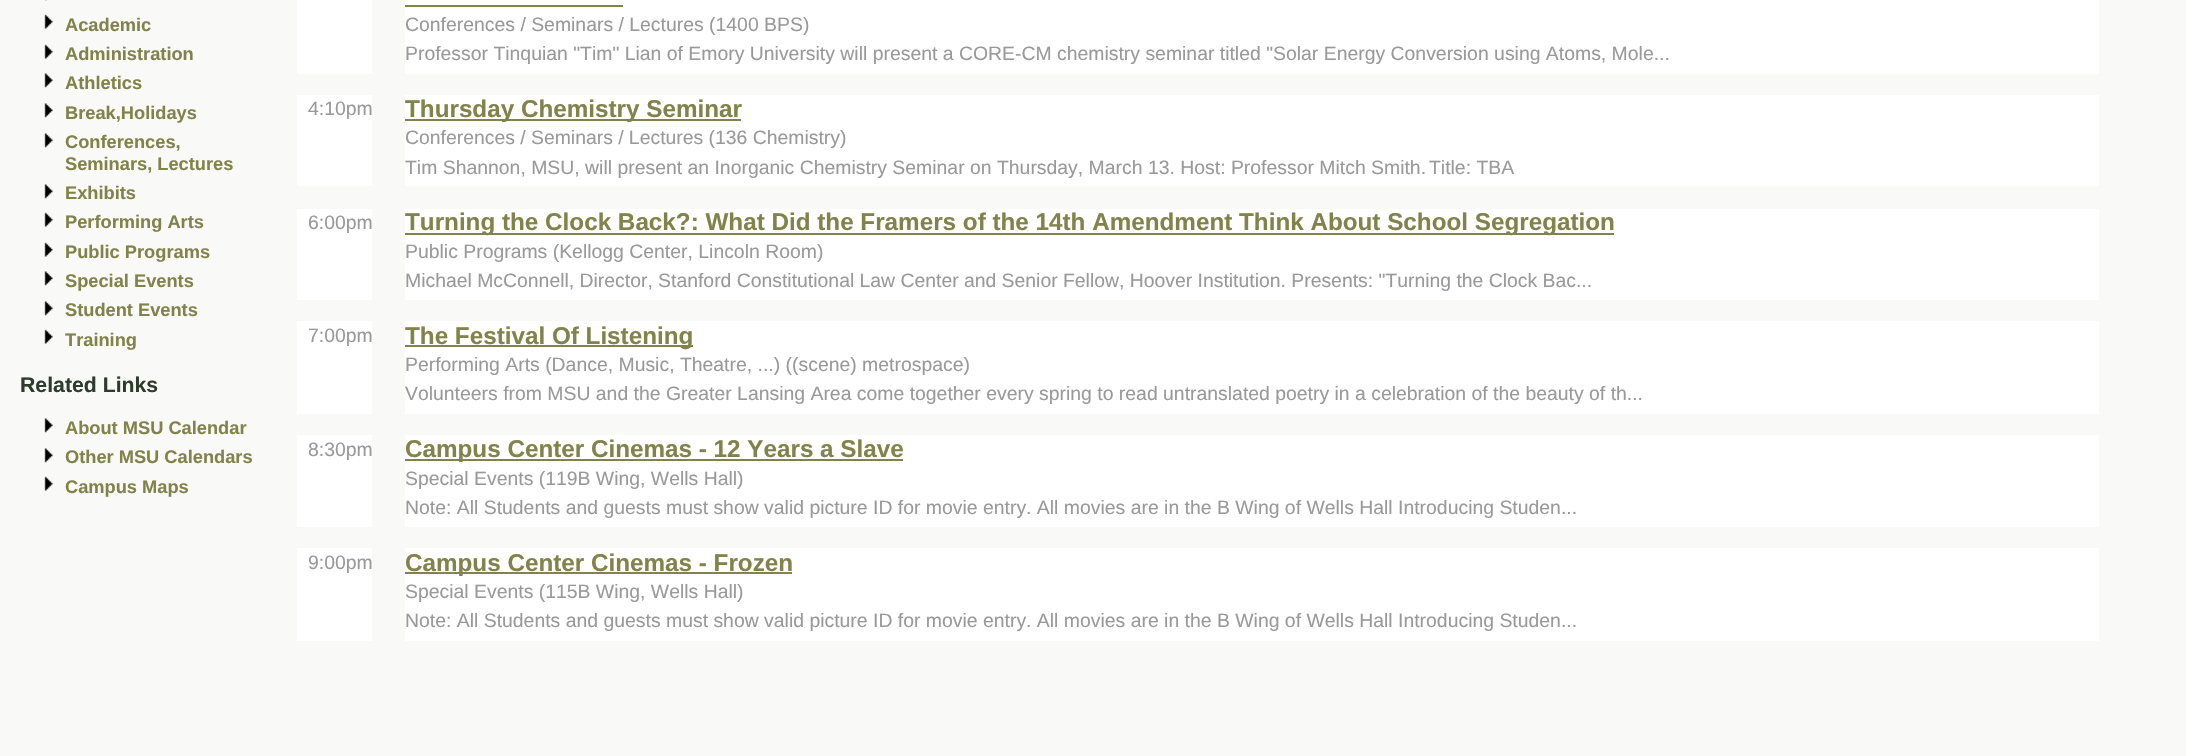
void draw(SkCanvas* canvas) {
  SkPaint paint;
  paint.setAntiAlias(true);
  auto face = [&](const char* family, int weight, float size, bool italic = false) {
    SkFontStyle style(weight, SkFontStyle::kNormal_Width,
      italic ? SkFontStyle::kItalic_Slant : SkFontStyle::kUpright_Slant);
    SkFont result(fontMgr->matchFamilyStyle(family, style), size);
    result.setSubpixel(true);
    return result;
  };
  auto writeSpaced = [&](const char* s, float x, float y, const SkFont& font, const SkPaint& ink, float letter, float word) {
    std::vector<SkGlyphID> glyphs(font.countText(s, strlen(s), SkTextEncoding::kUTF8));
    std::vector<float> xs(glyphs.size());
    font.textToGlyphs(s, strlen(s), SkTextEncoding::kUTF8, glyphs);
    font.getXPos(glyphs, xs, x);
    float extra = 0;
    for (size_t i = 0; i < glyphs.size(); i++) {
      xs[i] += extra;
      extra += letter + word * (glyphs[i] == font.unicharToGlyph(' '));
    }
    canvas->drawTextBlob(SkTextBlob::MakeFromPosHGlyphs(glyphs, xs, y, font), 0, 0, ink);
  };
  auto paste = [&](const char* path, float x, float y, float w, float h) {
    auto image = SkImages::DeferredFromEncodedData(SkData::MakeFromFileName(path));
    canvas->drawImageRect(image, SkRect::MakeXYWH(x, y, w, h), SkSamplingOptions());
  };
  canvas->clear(0xfff9f9f7);
  paste("img/1.png", 45, 0, 2, 1);
  paste("img/2.png", 44, 14, 9, 15);
  paste("img/2.png", 44, 44, 9, 15);
  paste("img/3.png", 44, 73, 9, 15);
  paste("img/3.png", 44, 103, 9, 15);
  paste("img/3.png", 44, 133, 9, 15);
  paste("img/3.png", 44, 184, 9, 15);
  paste("img/2.png", 44, 212, 9, 15);
  paste("img/2.png", 44, 242, 9, 15);
  paste("img/3.png", 44, 271, 9, 15);
  paste("img/3.png", 44, 301, 9, 15);
  paste("img/2.png", 44, 329, 9, 15);
  paste("img/3.png", 44, 418, 9, 15);
  paste("img/3.png", 44, 448, 9, 15);
  paste("img/2.png", 44, 476, 9, 15);
  {
    const struct { float x, y, w, h; SkColor color; } items[] = {
      {297, 0, 75, 74, 0xffffffff},
      {405, 0, 1694, 74, 0xffffffff},
      {405, 5, 218, 2, 0xff82824b},
      {297, 95, 75, 91, 0xffffffff},
      {405, 95, 1694, 91, 0xffffffff},
      {405, 119, 336, 2, 0xff82824b},
      {297, 209, 75, 91, 0xffffffff},
      {405, 209, 1694, 91, 0xffffffff},
      {405, 233, 1209, 2, 0xff82824b},
      {297, 321, 75, 93, 0xffffffff},
      {405, 321, 1694, 93, 0xffffffff},
      {405, 345, 288, 2, 0xff82824b},
      {297, 435, 75, 92, 0xffffffff},
      {405, 435, 1694, 92, 0xffffffff},
      {405, 459, 498, 2, 0xff82824b},
      {297, 548, 75, 93, 0xffffffff},
      {405, 548, 1694, 93, 0xffffffff},
      {405, 572, 387, 2, 0xff82824b},
    };
    for (auto [x, y, w, h, color] : items) {
      paint.setColor(color);
      canvas->drawRect(SkRect::MakeXYWH(x, y, w, h), paint);
    }
  }
  auto f0 = face("Liberation Sans", 700, 18.25f);
  {
    const struct { const char* s; float x, y; } items[] = {
      {"Academic", 65, 31},
      {"Administration", 65, 60},
      {"Athletics", 65, 89},
      {"Break,Holidays", 65, 119},
      {"Conferences,", 65, 148},
      {"Seminars, Lectures", 65, 170},
      {"Exhibits", 65, 199},
      {"Performing Arts", 65, 228},
      {"Public Programs", 65, 258},
      {"Special Events", 65, 287},
      {"Student Events", 65, 316},
      {"Training", 65, 346},
    };
    for (auto [s, x, y] : items) {
      canvas->drawString(s, x, y, f0, paint);
    }
  }
  auto f1 = face("Liberation Sans", 700, 21.25f);
  paint.setColor(0xff2d3c2d);
  canvas->drawString("Related Links", 20, 392, f1, paint);
  paint.setColor(0xff82824b);
  {
    const struct { const char* s; float x, y; } items[] = {
      {"About MSU Calendar", 65, 434},
      {"Other MSU Calendars", 65, 463},
      {"Campus Maps", 65, 493},
    };
    for (auto [s, x, y] : items) {
      canvas->drawString(s, x, y, f0, paint);
    }
  }
  auto f2 = face("Liberation Sans", 400, 19.4f);
  paint.setColor(0xff999999);
  {
    const struct { const char* s; float x, y; } items[] = {
      {"Conferences / Seminars / Lectures (1400 BPS)", 405, 31},
      {"Professor Tinquian \"Tim\" Lian of Emory University will present a CORE-CM chemistry seminar titled \"Solar Energy Conversion using Atoms, Mole...", 405, 60},
      {"4:10pm", 308, 115},
    };
    for (auto [s, x, y] : items) {
      canvas->drawString(s, x, y, f2, paint);
    }
  }
  auto f3 = face("Liberation Sans", 700, 24.25f);
  paint.setColor(0xff82824b);
  canvas->drawString("Thursday Chemistry Seminar", 405, 117, f3, paint);
  paint.setColor(0xff999999);
  writeSpaced("Conferences / Seminars / Lectures (136 Chemistry)", 405, 144, f2, paint, 0, -0.1f);
  {
    const struct { const char* s; float x, y; } items[] = {
      {"Tim Shannon, MSU, will present an Inorganic Chemistry Seminar on Thursday, March 13. Host: Professor Mitch Smith.", 405, 174},
      {"Title: TBA", 1429, 174},
      {"6:00pm", 308, 229},
    };
    for (auto [s, x, y] : items) {
      canvas->drawString(s, x, y, f2, paint);
    }
  }
  paint.setColor(0xff82824b);
  canvas->drawString("Turning the Clock Back?: What Did the Framers of the 14th Amendment Think About School Segregation", 405, 230, f3, paint);
  paint.setColor(0xff999999);
  canvas->drawString("Public Programs (Kellogg Center, Lincoln Room)", 405, 258, f2, paint);
  writeSpaced("Michael McConnell, Director, Stanford Constitutional Law Center and Senior Fellow, Hoover Institution. Presents: \"Turning the Clock Bac...", 405, 287, f2, paint, 0, -0.1f);
  canvas->drawString("7:00pm", 308, 342, f2, paint);
  paint.setColor(0xff82824b);
  canvas->drawString("The Festival Of Listening", 405, 344, f3, paint);
  paint.setColor(0xff999999);
  {
    const struct { const char* s; float x, y; } items[] = {
      {"Performing Arts (Dance, Music, Theatre, ...) ((scene) metrospace)", 405, 371},
      {"Volunteers from MSU and the Greater Lansing Area come together every spring to read untranslated poetry in a celebration of the beauty of th...", 405, 400},
      {"8:30pm", 308, 456},
    };
    for (auto [s, x, y] : items) {
      canvas->drawString(s, x, y, f2, paint);
    }
  }
  paint.setColor(0xff82824b);
  canvas->drawString("Campus Center Cinemas - 12 Years a Slave", 405, 457, f3, paint);
  paint.setColor(0xff999999);
  {
    const struct { const char* s; float x, y; } items[] = {
      {"Special Events (119B Wing, Wells Hall)", 405, 485},
      {"Note: All Students and guests must show valid picture ID for movie entry. All movies are in the B Wing of Wells Hall Introducing Studen...", 405, 514},
      {"9:00pm", 308, 569},
    };
    for (auto [s, x, y] : items) {
      canvas->drawString(s, x, y, f2, paint);
    }
  }
  paint.setColor(0xff82824b);
  canvas->drawString("Campus Center Cinemas - Frozen", 405, 571, f3, paint);
  paint.setColor(0xff999999);
  canvas->drawString("Special Events (115B Wing, Wells Hall)", 405, 598, f2, paint);
  canvas->drawString("Note: All Students and guests must show valid picture ID for movie entry. All movies are in the B Wing of Wells Hall Introducing Studen...", 405, 627, f2, paint);
}
